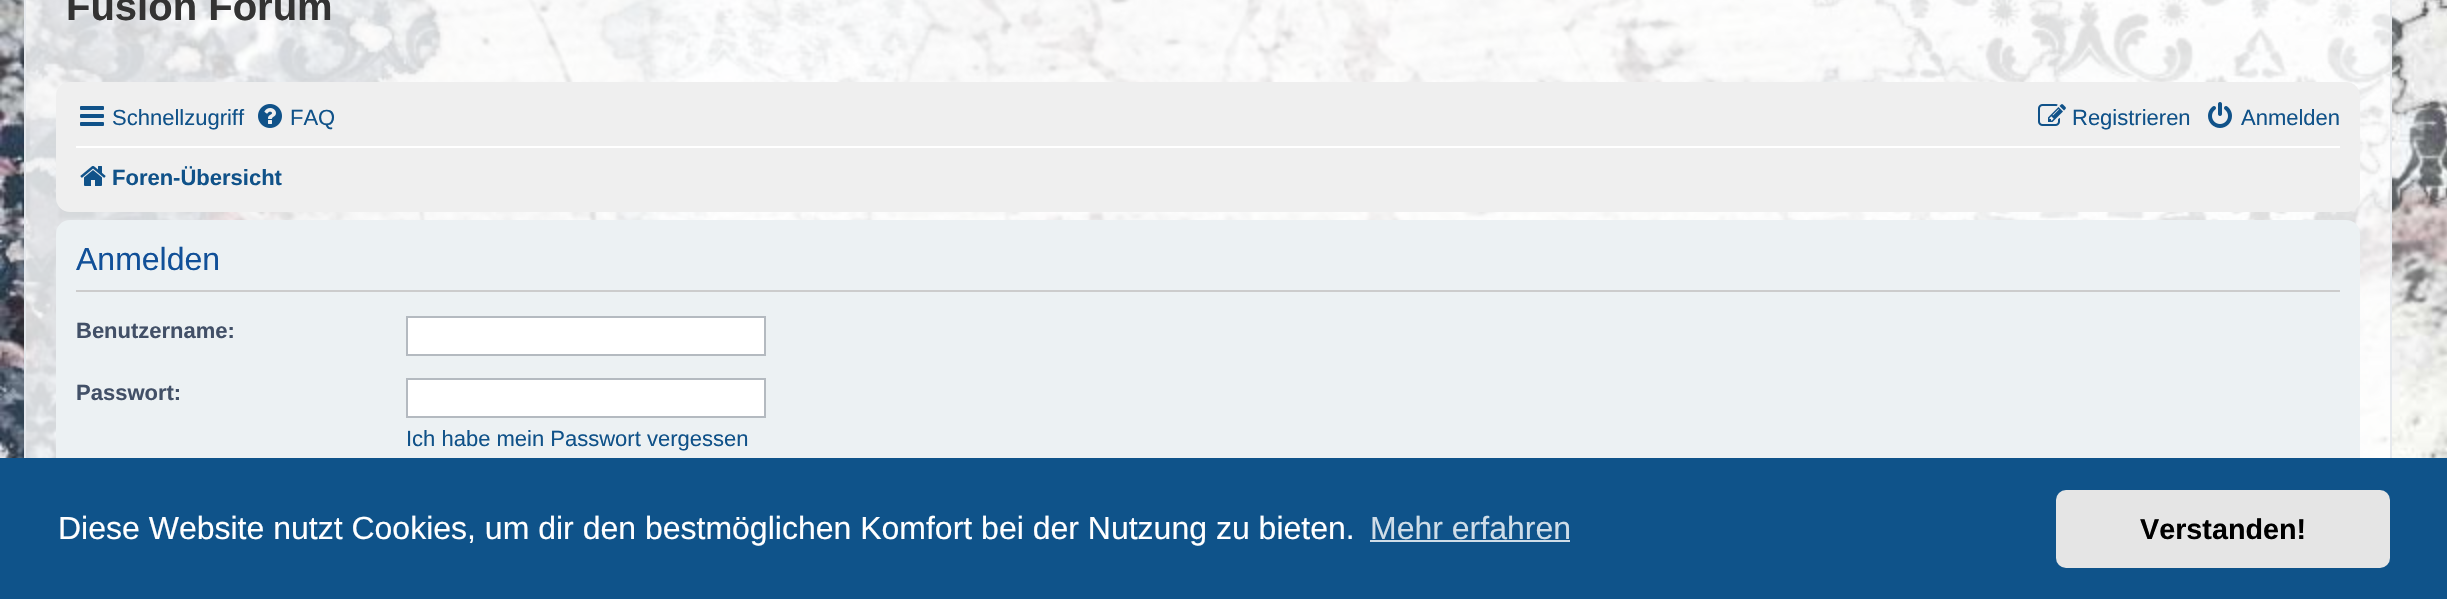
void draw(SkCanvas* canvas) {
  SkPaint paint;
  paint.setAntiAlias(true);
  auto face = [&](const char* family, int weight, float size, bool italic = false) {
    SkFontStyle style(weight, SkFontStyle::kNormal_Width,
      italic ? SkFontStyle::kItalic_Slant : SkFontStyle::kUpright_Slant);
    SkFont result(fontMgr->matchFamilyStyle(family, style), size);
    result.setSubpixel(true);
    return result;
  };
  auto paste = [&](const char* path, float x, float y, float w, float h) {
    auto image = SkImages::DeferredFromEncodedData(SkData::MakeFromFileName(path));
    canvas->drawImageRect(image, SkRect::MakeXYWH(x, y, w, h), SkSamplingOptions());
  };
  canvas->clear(0xffffffff);
  paste("img/1.png", 0, 0, 2447, 458);
  paint.setStroke(true);
  paint.setStrokeWidth(2);
  paint.setColor(0xffe6e9ed);
  canvas->drawRect(SkRect::MakeXYWH(25, -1, 2366, 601), paint);
  paint.setStroke(false);
  paint.setColor(0xffefefef);
  canvas->drawRoundRect(SkRect::MakeXYWH(56, 82, 2304, 130), 14, 14, paint);
  paste("img/2.png", 80, 106, 24, 20);
  paste("img/3.png", 258, 104, 24, 24);
  paste("img/4.png", 2038, 104, 28, 22);
  paste("img/5.png", 2208, 102, 24, 26);
  paint.setColor(0xffffffff);
  canvas->drawRect(SkRect::MakeXYWH(76, 146, 2264, 2), paint);
  paste("img/6.png", 80, 166, 26, 20);
  paint.setColor(0xffecf1f3);
  canvas->drawRoundRect(SkRect::MakeXYWH(56, 220, 2304, 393), 14, 14, paint);
  paint.setColor(0xffcccccc);
  canvas->drawRect(SkRect::MakeXYWH(76, 290, 2264, 2), paint);
  paint.setColor(0xffffffff);
  canvas->drawRect(SkRect::MakeXYWH(407, 317, 358, 38), paint);
  paint.setStroke(true);
  paint.setColor(0xffb4bac0);
  canvas->drawRect(SkRect::MakeXYWH(407, 317, 358, 38), paint);
  paint.setStroke(false);
  paint.setColor(0xffffffff);
  canvas->drawRect(SkRect::MakeXYWH(407, 379, 358, 38), paint);
  paint.setStroke(true);
  paint.setColor(0xffb4bac0);
  canvas->drawRect(SkRect::MakeXYWH(407, 379, 358, 38), paint);
  paint.setStroke(false);
  paint.setColor(0xff0f538a);
  canvas->drawRect(SkRect::MakeXYWH(0, 458, 2447, 141), paint);
  paint.setColor(0xffcfdde8);
  canvas->drawRect(SkRect::MakeXYWH(1370, 540, 200, 2), paint);
  paint.setColor(0xffe5e5e5);
  canvas->drawRoundRect(SkRect::MakeXYWH(2056, 490, 334, 78), 10, 10, paint);
  auto f0 = face("Liberation Sans", 700, 40);
  paint.setColor(0xff333333);
  canvas->drawString("Fusion Forum", 66, 20, f0, paint);
  auto f1 = face("Liberation Sans", 400, 22);
  paint.setColor(0xff105289);
  {
    const struct { const char* s; float x, y; } items[] = {
      {"Schnellzugriff", 112, 125},
      {"FAQ", 290, 125},
      {"Registrieren", 2072, 125},
      {"Anmelden", 2241, 125},
    };
    for (auto [s, x, y] : items) {
      canvas->drawString(s, x, y, f1, paint);
    }
  }
  auto f2 = face("Liberation Sans", 700, 22);
  canvas->drawString("Foren-Übersicht", 112, 185, f2, paint);
  auto f3 = face("Liberation Sans", 400, 32);
  paint.setColor(0xff115098);
  canvas->drawString("Anmelden", 76, 270, f3, paint);
  paint.setColor(0xff425067);
  canvas->drawString("Benutzername:", 76, 338, f2, paint);
  canvas->drawString("Passwort:", 76, 400, f2, paint);
  paint.setColor(0xff105289);
  canvas->drawString("Ich habe mein Passwort vergessen", 406, 446, f1, paint);
  paint.setColor(0xffffffff);
  canvas->drawString("Diese Website nutzt Cookies, um dir den bestmöglichen Komfort bei der Nutzung zu bieten.", 58, 539, f3, paint);
  paint.setColor(0xffcfdde8);
  canvas->drawString("Mehr erfahren", 1370, 539, f3, paint);
  auto f4 = face("Liberation Sans", 700, 28.75f);
  paint.setColor(0xff000000);
  canvas->drawString("Verstanden!", 2140, 539, f4, paint);
}
